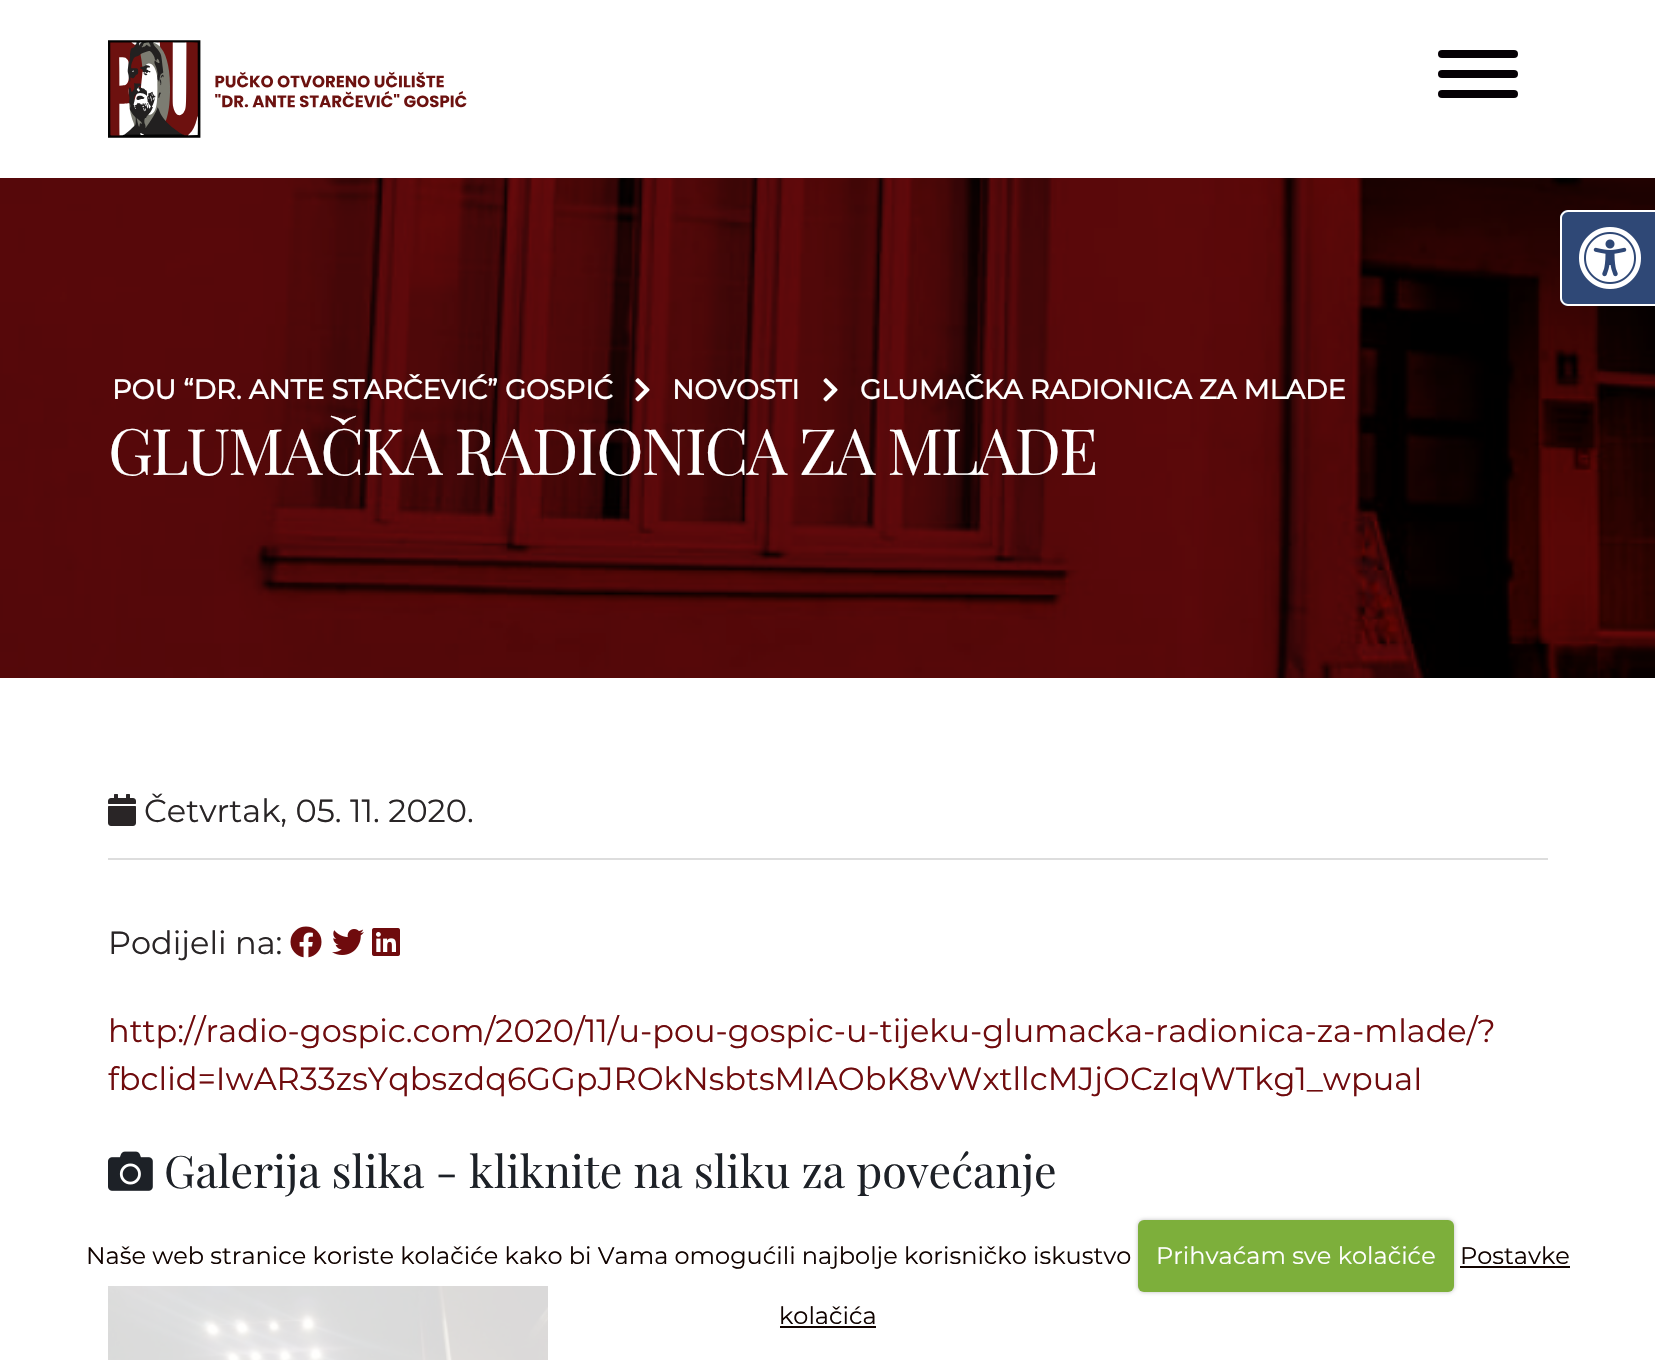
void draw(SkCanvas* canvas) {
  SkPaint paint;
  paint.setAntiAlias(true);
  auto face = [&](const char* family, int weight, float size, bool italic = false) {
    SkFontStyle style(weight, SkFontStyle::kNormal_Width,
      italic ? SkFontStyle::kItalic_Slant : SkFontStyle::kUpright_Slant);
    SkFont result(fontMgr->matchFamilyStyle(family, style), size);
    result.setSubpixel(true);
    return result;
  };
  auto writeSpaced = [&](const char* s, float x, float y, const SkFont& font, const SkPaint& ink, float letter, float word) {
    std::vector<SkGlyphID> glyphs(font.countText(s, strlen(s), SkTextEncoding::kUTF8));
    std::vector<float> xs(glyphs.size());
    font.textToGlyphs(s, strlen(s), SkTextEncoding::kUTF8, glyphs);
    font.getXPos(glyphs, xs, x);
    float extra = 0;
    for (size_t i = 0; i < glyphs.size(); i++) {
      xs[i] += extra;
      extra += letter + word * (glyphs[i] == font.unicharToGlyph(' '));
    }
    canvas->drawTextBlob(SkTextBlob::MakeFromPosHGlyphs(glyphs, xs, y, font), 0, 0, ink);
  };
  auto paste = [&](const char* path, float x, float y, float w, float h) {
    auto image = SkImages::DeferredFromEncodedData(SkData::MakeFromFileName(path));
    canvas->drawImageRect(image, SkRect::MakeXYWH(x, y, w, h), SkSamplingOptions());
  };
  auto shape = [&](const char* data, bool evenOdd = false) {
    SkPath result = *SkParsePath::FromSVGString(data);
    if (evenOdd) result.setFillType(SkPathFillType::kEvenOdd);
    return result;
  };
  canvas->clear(0xffffffff);
  paste("img/1.png", 108, 40, 359, 98);
  paint.setColor(0xff050105);
  canvas->drawRoundRect(SkRect::MakeXYWH(1438, 50, 80, 8), 4, 4, paint);
  canvas->drawRoundRect(SkRect::MakeXYWH(1438, 70, 80, 8), 4, 4, paint);
  canvas->drawRoundRect(SkRect::MakeXYWH(1438, 90, 80, 8), 4, 4, paint);
  paste("img/3.png", 0, 178, 1655, 500);
  paint.setColor(0xff2f4876);
  canvas->drawPath(shape("M1568 210H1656V306H1568C1563.5 306 1560 302.5 1560 298V218C1560 213.5 1563.5 210 1568 210Z"), paint);
  paint.setColor(0xffffffff);
  canvas->drawPath(shape("M1568 210H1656V306H1568C1564 306 1560 302 1560 298V218C1560 214 1564 210 1568 210ZM1568 212H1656V304H1568C1565 304 1562 301 1562 298V218C1562 215 1565 212 1568 212Z", true), paint);
  paste("img/2.png", 1579, 227, 62, 62);
  paste("img/4.png", 635, 378, 15, 24);
  paste("img/5.png", 823, 378, 15, 24);
  paste("img/6.png", 108, 794, 28, 32);
  paint.setColor(0xffdddddd);
  canvas->drawRect(SkRect::MakeXYWH(108, 858, 1440, 2), paint);
  paste("img/7.png", 290, 926, 32, 32);
  paste("img/8.png", 332, 929, 32, 26);
  paste("img/9.png", 372, 928, 28, 28);
  paste("img/10.png", 108, 1151, 45, 40);
  paste("img/11.png", 108, 1286, 440, 74);
  paint.setColor(0x40000000);
  paint.setMaskFilter(SkMaskFilter::MakeBlur(kNormal_SkBlurStyle, 2));
  canvas->drawRoundRect(SkRect::MakeXYWH(1138, 1220, 316, 72), 6, 6, paint);
  paint.setMaskFilter(nullptr);
  paint.setColor(0xff7daf3b);
  canvas->drawRoundRect(SkRect::MakeXYWH(1138, 1220, 316, 72), 6, 6, paint);
  paint.setColor(0xff110300);
  canvas->drawRect(SkRect::MakeXYWH(1460, 1266, 110, 2), paint);
  canvas->drawRect(SkRect::MakeXYWH(780, 1326, 96, 2), paint);
  auto f0 = face("Montserrat", 700, 27.25f);
  paint.setColor(0xffffffff);
  {
    const struct { const char* s; float x, y; } items[] = {
      {"POU “DR. ANTE STARČEVIĆ” GOSPIĆ", 112, 399},
      {"NOVOSTI", 672, 399},
      {"GLUMAČKA RADIONICA ZA MLADE", 860, 399},
    };
    for (auto [s, x, y] : items) {
      canvas->drawString(s, x, y, f0, paint);
    }
  }
  auto f1 = face("Playfair Display", 400, 64);
  writeSpaced("GLUMAČKA RADIONICA ZA MLADE", 108, 475, f1, paint, -2, 0);
  auto f2 = face("Montserrat", 100, 32);
  paint.setColor(0xff292526);
  canvas->drawString("Četvrtak, 05. 11. 2020.", 144, 822, f2, paint);
  canvas->drawString("Podijeli na:", 108, 954, f2, paint);
  paint.setColor(0xff6f0b0d);
  canvas->drawString("http://radio-gospic.com/2020/11/u-pou-gospic-u-tijeku-glumacka-radionica-za-mlade/?", 108, 1042, f2, paint);
  canvas->drawString("fbclid=IwAR33zsYqbszdq6GGpJROkNsbtsMIAObK8vWxtllcMJjOCzIqWTkg1_wpuaI", 108, 1090, f2, paint);
  auto f3 = face("Playfair Display", 400, 44.75f);
  paint.setColor(0xff1d2127);
  canvas->drawString("Galerija slika - kliknite na sliku za povećanje", 164, 1188, f3, paint);
  auto f4 = face("Montserrat", 100, 24);
  paint.setColor(0xff110300);
  canvas->drawString("Naše web stranice koriste kolačiće kako bi Vama omogućili najbolje korisničko iskustvo", 86, 1264, f4, paint);
  paint.setColor(0xffffffff);
  canvas->drawString("Prihvaćam sve kolačiće", 1156, 1264, f4, paint);
  paint.setColor(0xff110300);
  canvas->drawString("Postavke", 1460, 1264, f4, paint);
  canvas->drawString("kolačića", 779, 1324, f4, paint);
}
